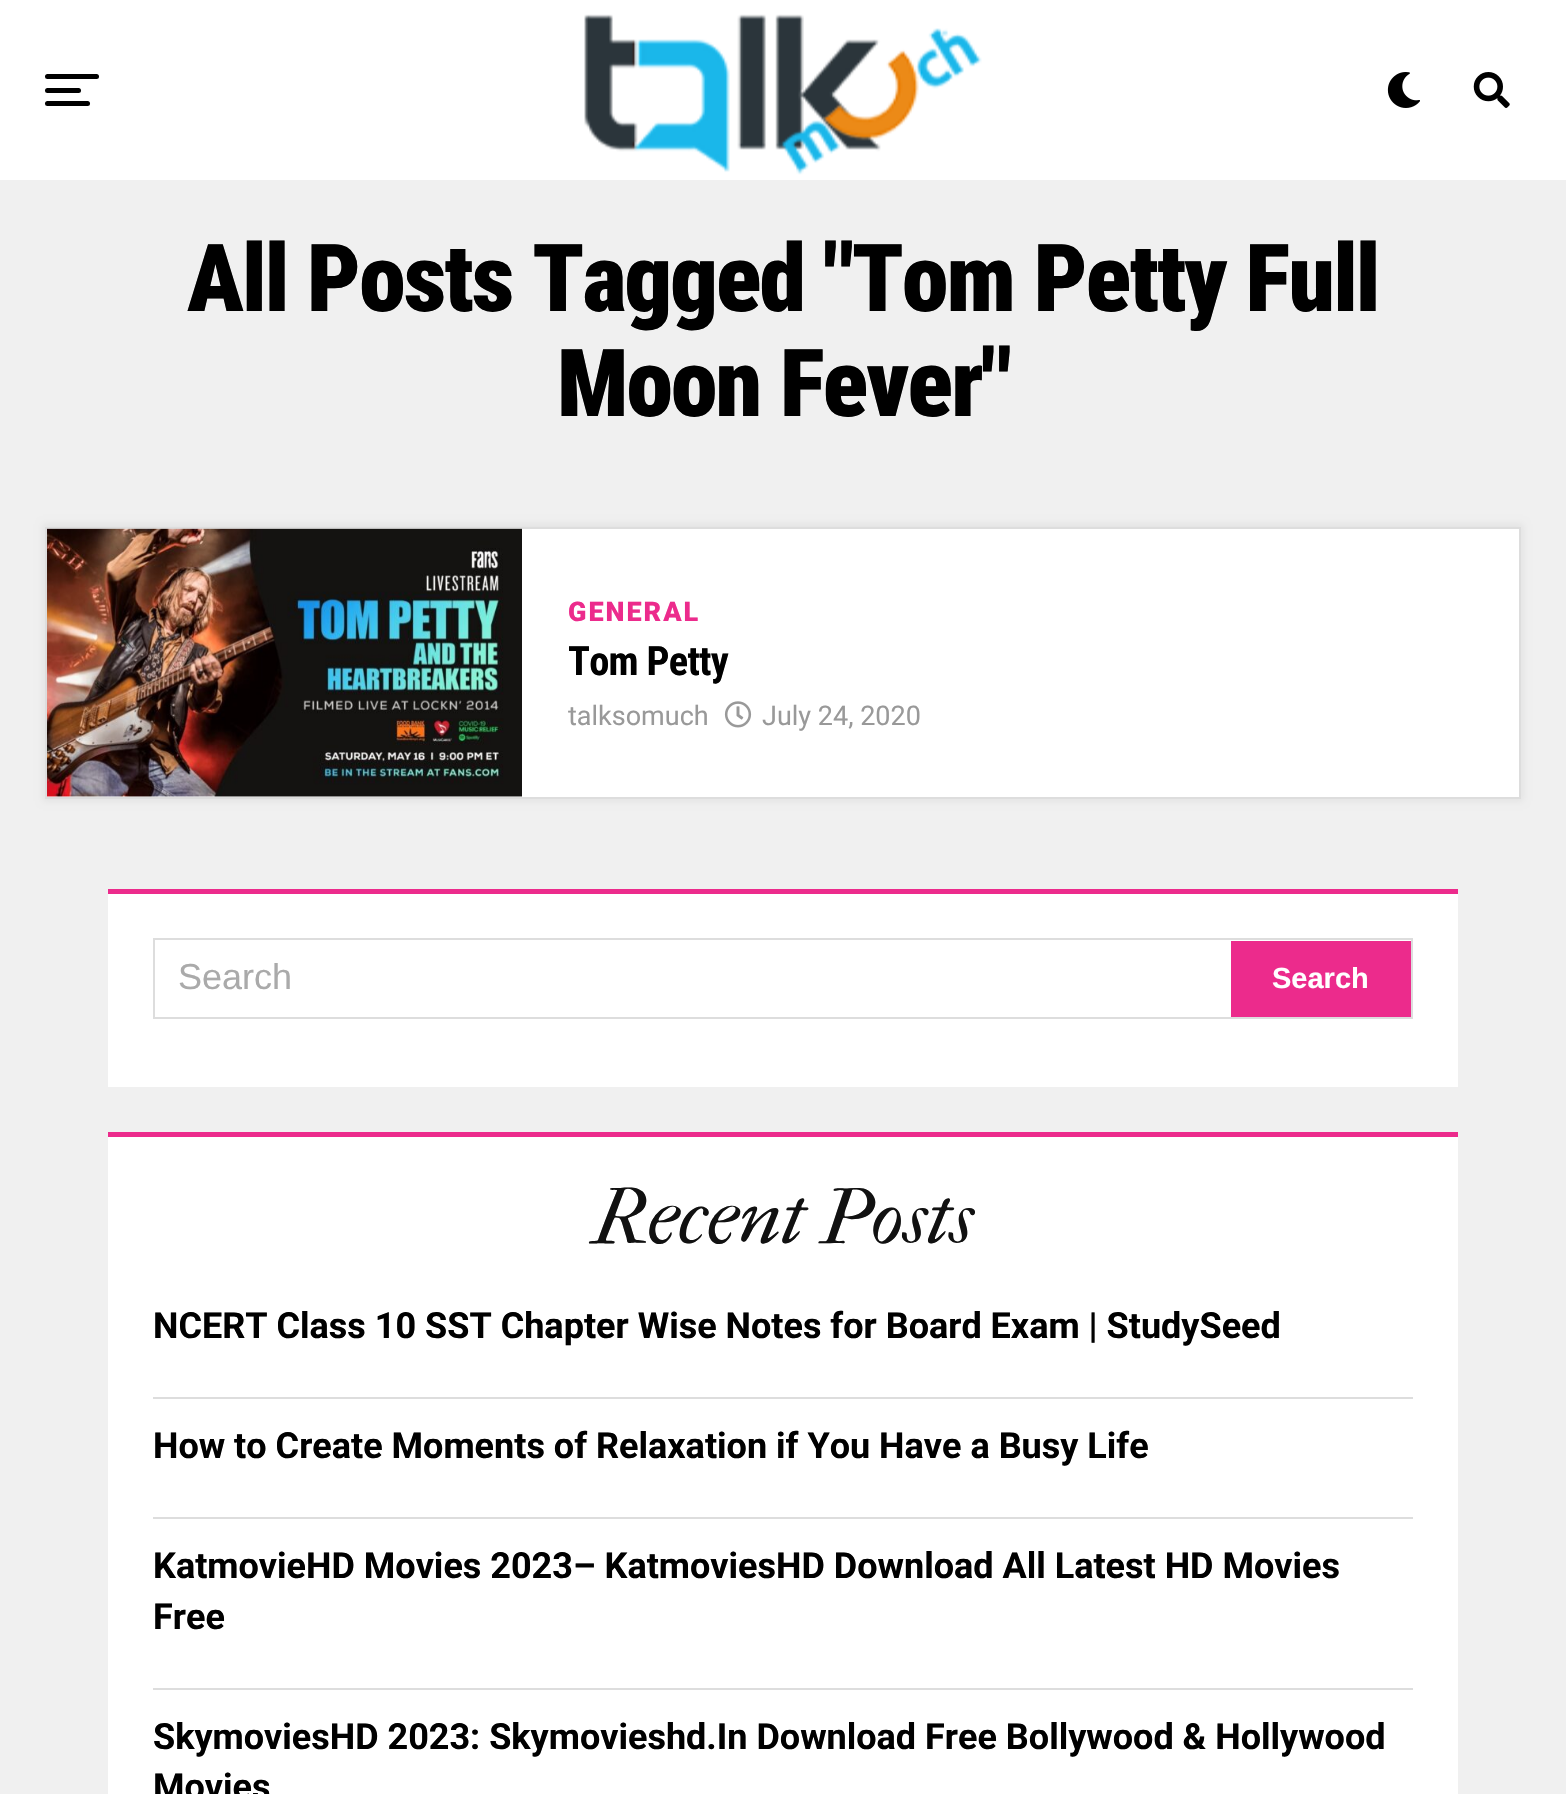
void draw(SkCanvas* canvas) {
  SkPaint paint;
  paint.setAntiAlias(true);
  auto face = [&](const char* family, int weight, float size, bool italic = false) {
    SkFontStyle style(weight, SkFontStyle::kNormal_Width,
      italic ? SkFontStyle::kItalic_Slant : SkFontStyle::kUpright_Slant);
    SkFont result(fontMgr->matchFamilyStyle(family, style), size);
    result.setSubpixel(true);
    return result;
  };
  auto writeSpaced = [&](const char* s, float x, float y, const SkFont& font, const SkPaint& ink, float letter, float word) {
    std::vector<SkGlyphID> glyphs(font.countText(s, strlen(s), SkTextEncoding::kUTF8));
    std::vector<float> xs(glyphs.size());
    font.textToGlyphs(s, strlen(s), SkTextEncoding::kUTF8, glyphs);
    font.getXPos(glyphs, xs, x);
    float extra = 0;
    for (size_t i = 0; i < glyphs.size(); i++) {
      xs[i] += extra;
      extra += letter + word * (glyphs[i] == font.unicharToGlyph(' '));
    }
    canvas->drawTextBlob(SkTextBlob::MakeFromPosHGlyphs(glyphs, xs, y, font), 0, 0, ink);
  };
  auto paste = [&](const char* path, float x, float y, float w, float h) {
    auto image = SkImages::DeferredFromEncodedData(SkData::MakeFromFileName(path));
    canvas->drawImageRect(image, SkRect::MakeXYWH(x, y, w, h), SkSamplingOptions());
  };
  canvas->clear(0xfff0f0f0);
  paint.setColor(0xffffffff);
  canvas->drawRect(SkRect::MakeXYWH(0, 0, 1566, 180), paint);
  paint.setColor(0xff000000);
  canvas->drawRoundRect(SkRect::MakeXYWH(45, 74, 54, 5), 2.5f, 2.5f, paint);
  canvas->drawRoundRect(SkRect::MakeXYWH(45, 88, 36, 5), 2.5f, 2.5f, paint);
  canvas->drawRoundRect(SkRect::MakeXYWH(45, 101, 45, 5), 2.5f, 2.5f, paint);
  paste("img/1.png", 584, 14, 398, 161);
  paste("img/2.png", 1387, 72, 33, 36);
  paste("img/3.png", 1473, 72, 37, 36);
  paint.setColor(0x0f000000);
  paint.setMaskFilter(SkMaskFilter::MakeBlur(kNormal_SkBlurStyle, 3.5f));
  canvas->drawRect(SkRect::MakeXYWH(43, 524, 1480, 277), paint);
  paint.setMaskFilter(nullptr);
  paint.setColor(0xffffffff);
  canvas->drawRect(SkRect::MakeXYWH(46, 528, 1474, 270), paint);
  paint.setStroke(true);
  paint.setStrokeWidth(2);
  paint.setColor(0xffdddddd);
  canvas->drawRect(SkRect::MakeXYWH(46, 528, 1474, 270), paint);
  paste("img/4.png", 47, 528, 475, 269);
  paste("img/5.png", 724, 701, 28, 27);
  paint.setStroke(false);
  paint.setColor(0xffffffff);
  canvas->drawRect(SkRect::MakeXYWH(108, 894, 1350, 193), paint);
  paint.setColor(0xffec2b8c);
  canvas->drawRect(SkRect::MakeXYWH(108, 889, 1350, 5), paint);
  paint.setStroke(true);
  paint.setColor(0xffdddddd);
  canvas->drawRect(SkRect::MakeXYWH(154, 939, 1258, 79), paint);
  paint.setStroke(false);
  {
    const struct { float x, y, w, h; SkColor color; } items[] = {
      {1231, 941, 180, 76, 0xffec2b8c},
      {108, 1137, 1350, 657, 0xffffffff},
      {108, 1132, 1350, 5, 0xffec2b8c},
      {153, 1397, 1260, 2, 0xffdddddd},
      {153, 1517, 1260, 2, 0xffdddddd},
      {153, 1688, 1260, 2, 0xffdddddd},
    };
    for (auto [x, y, w, h, color] : items) {
      paint.setColor(color);
      canvas->drawRect(SkRect::MakeXYWH(x, y, w, h), paint);
    }
  }
  auto f0 = face("Roboto Condensed", 900, 94);
  paint.setColor(0xff000000);
  writeSpaced("All Posts Tagged \"Tom Petty Full", 187, 311, f0, paint, -1.9f, 0);
  writeSpaced("Moon Fever\"", 557, 416, f0, paint, -1.9f, 0);
  auto f1 = face("Roboto", 900, 27);
  paint.setColor(0xffec2b8c);
  writeSpaced("GENERAL", 568, 621, f1, paint, 2, 0);
  auto f2 = face("Roboto Condensed", 700, 40.5f);
  paint.setColor(0xff000000);
  writeSpaced("Tom Petty", 568, 675, f2, paint, -0.75f, 0);
  auto f3 = face("Roboto", 400, 27);
  paint.setColor(0xff999999);
  canvas->drawString("talksomuch", 568, 725, f3, paint);
  canvas->drawString("July 24, 2020", 762, 725, f3, paint);
  auto f4 = face("Liberation Sans", 400, 36);
  paint.setColor(0xffaaaaaa);
  canvas->drawString("Search", 178, 989, f4, paint);
  auto f5 = face("Liberation Sans", 700, 29);
  paint.setColor(0xffffffff);
  canvas->drawString("Search", 1272, 988, f5, paint);
  auto f6 = face("IM FELL French Canon", 400, 76.5f, true);
  paint.setColor(0xff111111);
  canvas->drawString("Recent Posts", 593, 1243, f6, paint);
  auto f7 = face("Roboto", 700, 36);
  paint.setColor(0xff000000);
  {
    const struct { const char* s; float x, y; } items[] = {
      {"NCERT Class 10 SST Chapter Wise Notes for Board Exam | StudySeed", 153, 1338},
      {"How to Create Moments of Relaxation if You Have a Busy Life", 153, 1458},
      {"KatmovieHD Movies 2023– KatmoviesHD Download All Latest HD Movies", 153, 1578},
      {"Free", 153, 1629},
      {"SkymoviesHD 2023: Skymovieshd.In Download Free Bollywood & Hollywood", 153, 1749},
      {"Movies", 153, 1799},
    };
    for (auto [s, x, y] : items) {
      canvas->drawString(s, x, y, f7, paint);
    }
  }
}
